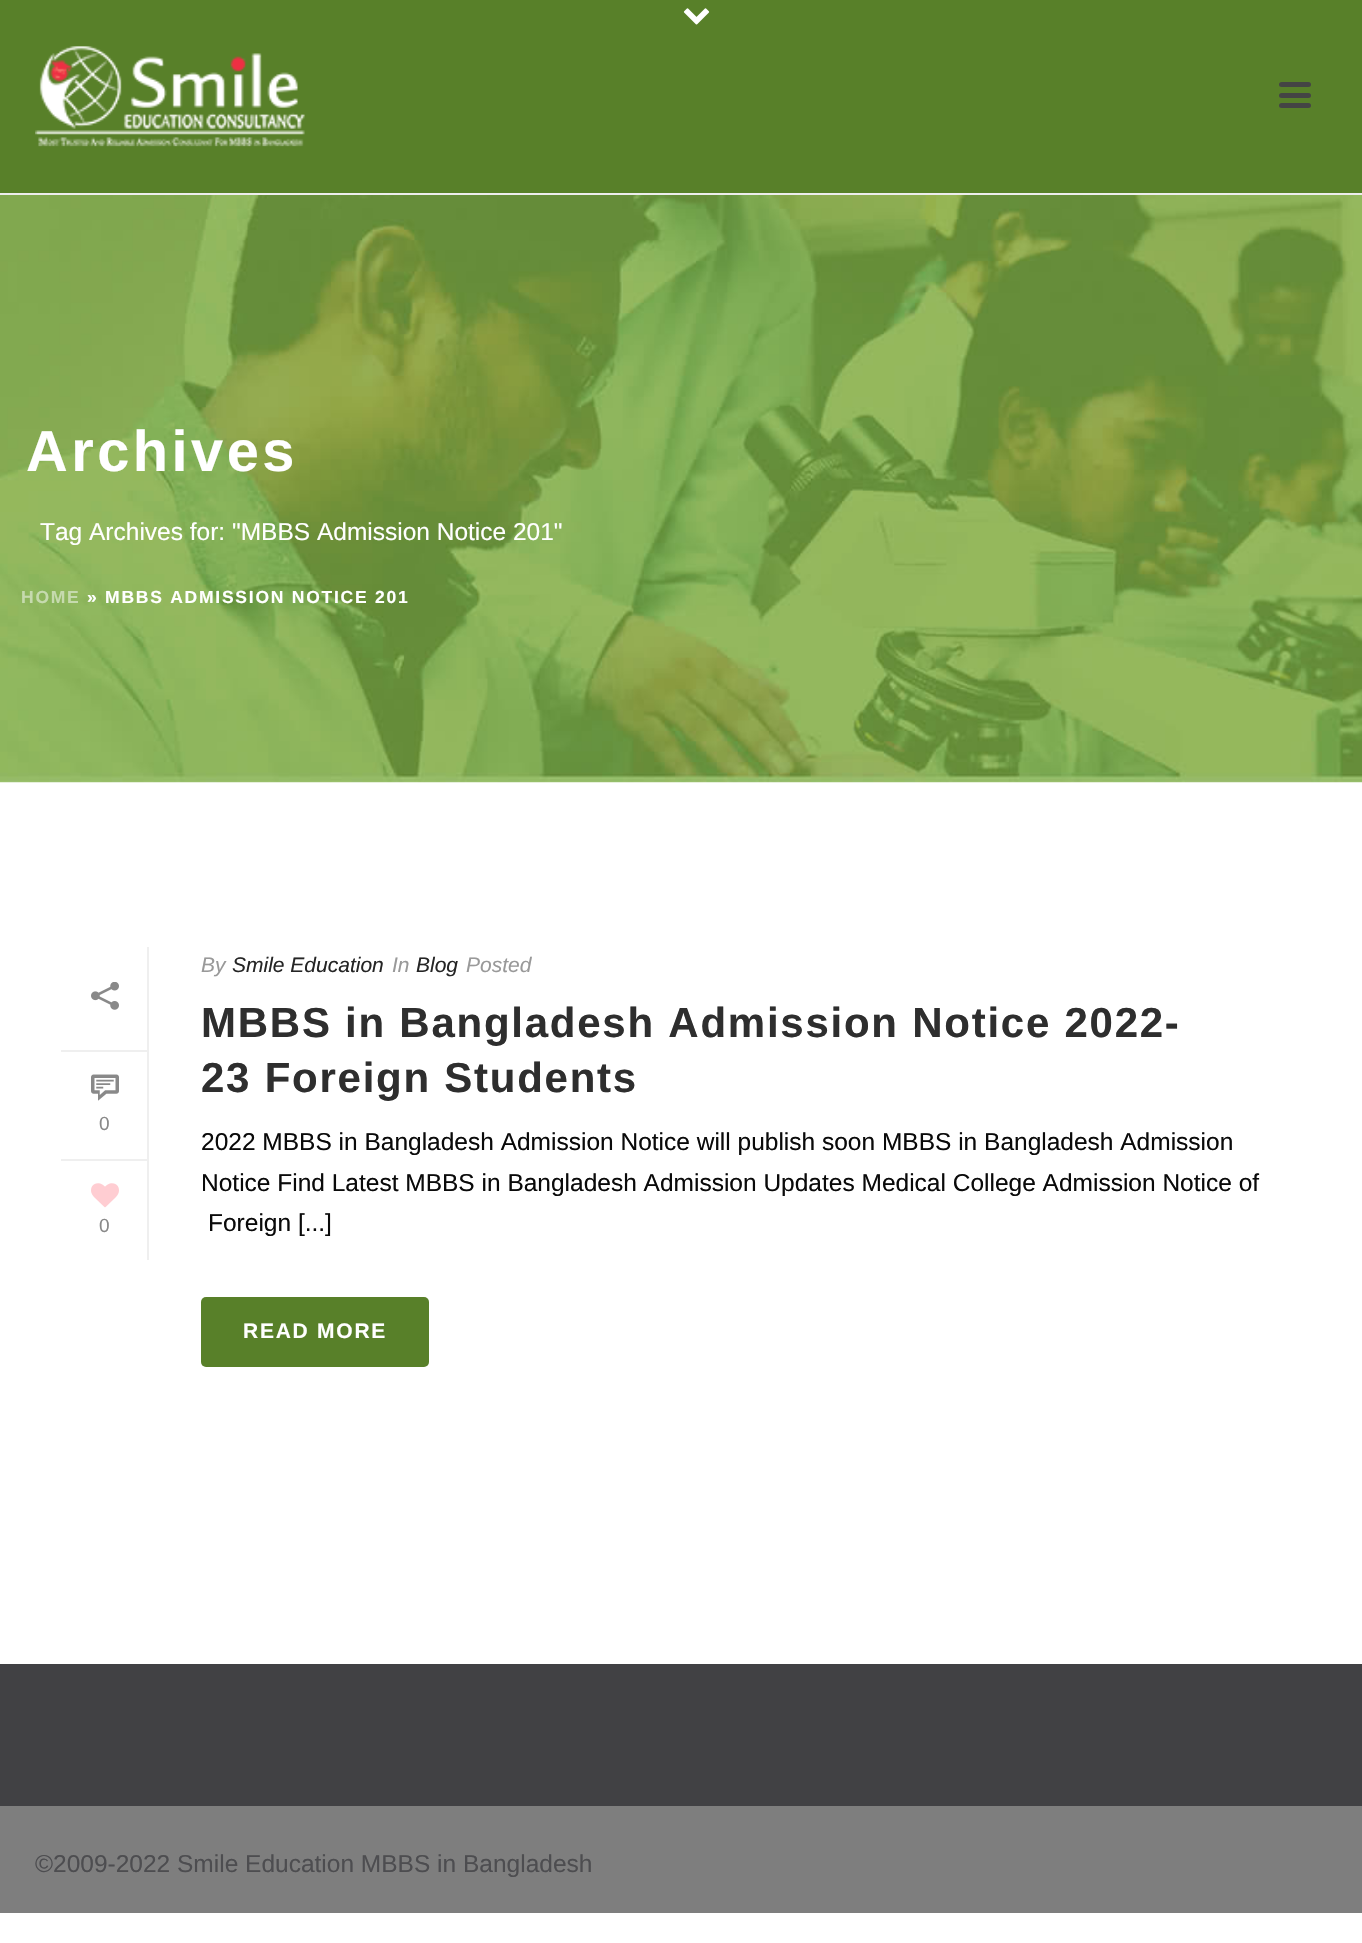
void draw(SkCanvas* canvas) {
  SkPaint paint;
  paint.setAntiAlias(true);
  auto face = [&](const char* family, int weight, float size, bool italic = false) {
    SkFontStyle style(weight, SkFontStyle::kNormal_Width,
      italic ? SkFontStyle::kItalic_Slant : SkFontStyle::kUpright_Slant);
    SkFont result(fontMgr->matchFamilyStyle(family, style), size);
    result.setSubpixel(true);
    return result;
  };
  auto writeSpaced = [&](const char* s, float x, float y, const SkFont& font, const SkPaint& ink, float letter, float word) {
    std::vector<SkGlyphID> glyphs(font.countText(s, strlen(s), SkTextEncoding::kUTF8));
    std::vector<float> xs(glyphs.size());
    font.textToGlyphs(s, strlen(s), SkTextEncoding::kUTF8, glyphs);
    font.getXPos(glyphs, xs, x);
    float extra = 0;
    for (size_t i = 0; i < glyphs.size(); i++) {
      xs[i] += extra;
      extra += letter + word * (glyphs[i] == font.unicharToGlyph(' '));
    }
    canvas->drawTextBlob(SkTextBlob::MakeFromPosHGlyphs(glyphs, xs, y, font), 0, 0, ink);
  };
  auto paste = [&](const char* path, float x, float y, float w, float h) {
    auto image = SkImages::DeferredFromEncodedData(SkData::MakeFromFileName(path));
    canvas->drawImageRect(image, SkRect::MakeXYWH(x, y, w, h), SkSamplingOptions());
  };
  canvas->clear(0xffffffff);
  paste("img/1.png", 0, 195, 1362, 588);
  paint.setColor(0xffededed);
  canvas->drawRect(SkRect::MakeXYWH(0, 193, 1362, 2), paint);
  paint.setColor(0xff588029);
  canvas->drawRect(SkRect::MakeXYWH(0, 0, 1362, 193), paint);
  paste("img/2.png", 683, 8, 27, 17);
  paste("img/3.png", 35, 46, 270, 101);
  paint.setColor(0xff444444);
  canvas->drawRoundRect(SkRect::MakeXYWH(1279, 82, 32, 5), 2.5f, 2.5f, paint);
  canvas->drawRoundRect(SkRect::MakeXYWH(1279, 93, 32, 5), 2.5f, 2.5f, paint);
  canvas->drawRoundRect(SkRect::MakeXYWH(1279, 103, 32, 5), 2.5f, 2.5f, paint);
  paint.setColor(0xffefefef);
  canvas->drawRect(SkRect::MakeXYWH(147, 947, 2, 313), paint);
  canvas->drawRect(SkRect::MakeXYWH(61, 1050, 86, 2), paint);
  paste("img/4.png", 91, 982, 28, 28);
  canvas->drawRect(SkRect::MakeXYWH(61, 1159, 86, 2), paint);
  paste("img/5.png", 91, 1074, 28, 27);
  paste("img/6.png", 91, 1183, 28, 25);
  paint.setColor(0xff588029);
  canvas->drawRoundRect(SkRect::MakeXYWH(201, 1297, 228, 70), 5, 5, paint);
  paint.setColor(0xff414144);
  canvas->drawRect(SkRect::MakeXYWH(0, 1664, 1362, 142), paint);
  paint.setColor(0xff7e7e7e);
  canvas->drawRect(SkRect::MakeXYWH(0, 1806, 1362, 107), paint);
  auto f0 = face("Liberation Sans", 700, 57.75f);
  paint.setColor(0xffffffff);
  writeSpaced("Archives", 26, 471, f0, paint, 3.5f, 0);
  auto f1 = face("Liberation Sans", 400, 24.5f);
  canvas->drawString("Tag Archives for: \"MBBS Admission Notice 201\"", 40, 540, f1, paint);
  auto f2 = face("Liberation Sans", 700, 17.5f);
  paint.setColor(0xffc6daae);
  writeSpaced("HOME", 21, 603, f2, paint, 1.75f, 0);
  paint.setColor(0xffffffff);
  writeSpaced("» MBBS ADMISSION NOTICE 201", 87, 603, f2, paint, 1.75f, 0);
  auto f3 = face("Liberation Sans", 400, 19);
  paint.setColor(0xff898989);
  canvas->drawString("0", 99, 1130, f3, paint);
  canvas->drawString("0", 99, 1232, f3, paint);
  auto f4 = face("Liberation Sans", 400, 21, true);
  paint.setColor(0xff999999);
  canvas->drawString("By", 201, 972, f4, paint);
  paint.setColor(0xff252525);
  canvas->drawString("Smile Education", 232, 972, f4, paint);
  paint.setColor(0xff999999);
  canvas->drawString("In", 392, 972, f4, paint);
  paint.setColor(0xff252525);
  canvas->drawString("Blog", 416, 972, f4, paint);
  paint.setColor(0xff999999);
  canvas->drawString("Posted", 466, 972, f4, paint);
  auto f5 = face("Liberation Sans", 700, 42);
  paint.setColor(0xff2e2e2e);
  writeSpaced("MBBS in Bangladesh Admission Notice 2022-", 201, 1037, f5, paint, 1.75f, 0);
  writeSpaced("23 Foreign Students", 201, 1092, f5, paint, 1.75f, 0);
  paint.setColor(0xff0a0a0a);
  {
    const struct { const char* s; float x, y; } items[] = {
      {"2022 MBBS in Bangladesh Admission Notice will publish soon MBBS in Bangladesh Admission", 201, 1150},
      {"Notice Find Latest MBBS in Bangladesh Admission Updates Medical College Admission Notice of", 201, 1191},
      {"Foreign [...]", 208, 1231},
    };
    for (auto [s, x, y] : items) {
      canvas->drawString(s, x, y, f1, paint);
    }
  }
  auto f6 = face("Liberation Sans", 700, 21);
  paint.setColor(0xffffffff);
  writeSpaced("READ MORE", 243, 1338, f6, paint, 1.75f, 0);
  paint.setColor(0xff4d4d50);
  canvas->drawString("©2009-2022 Smile Education MBBS in Bangladesh", 35, 1872, f1, paint);
}
